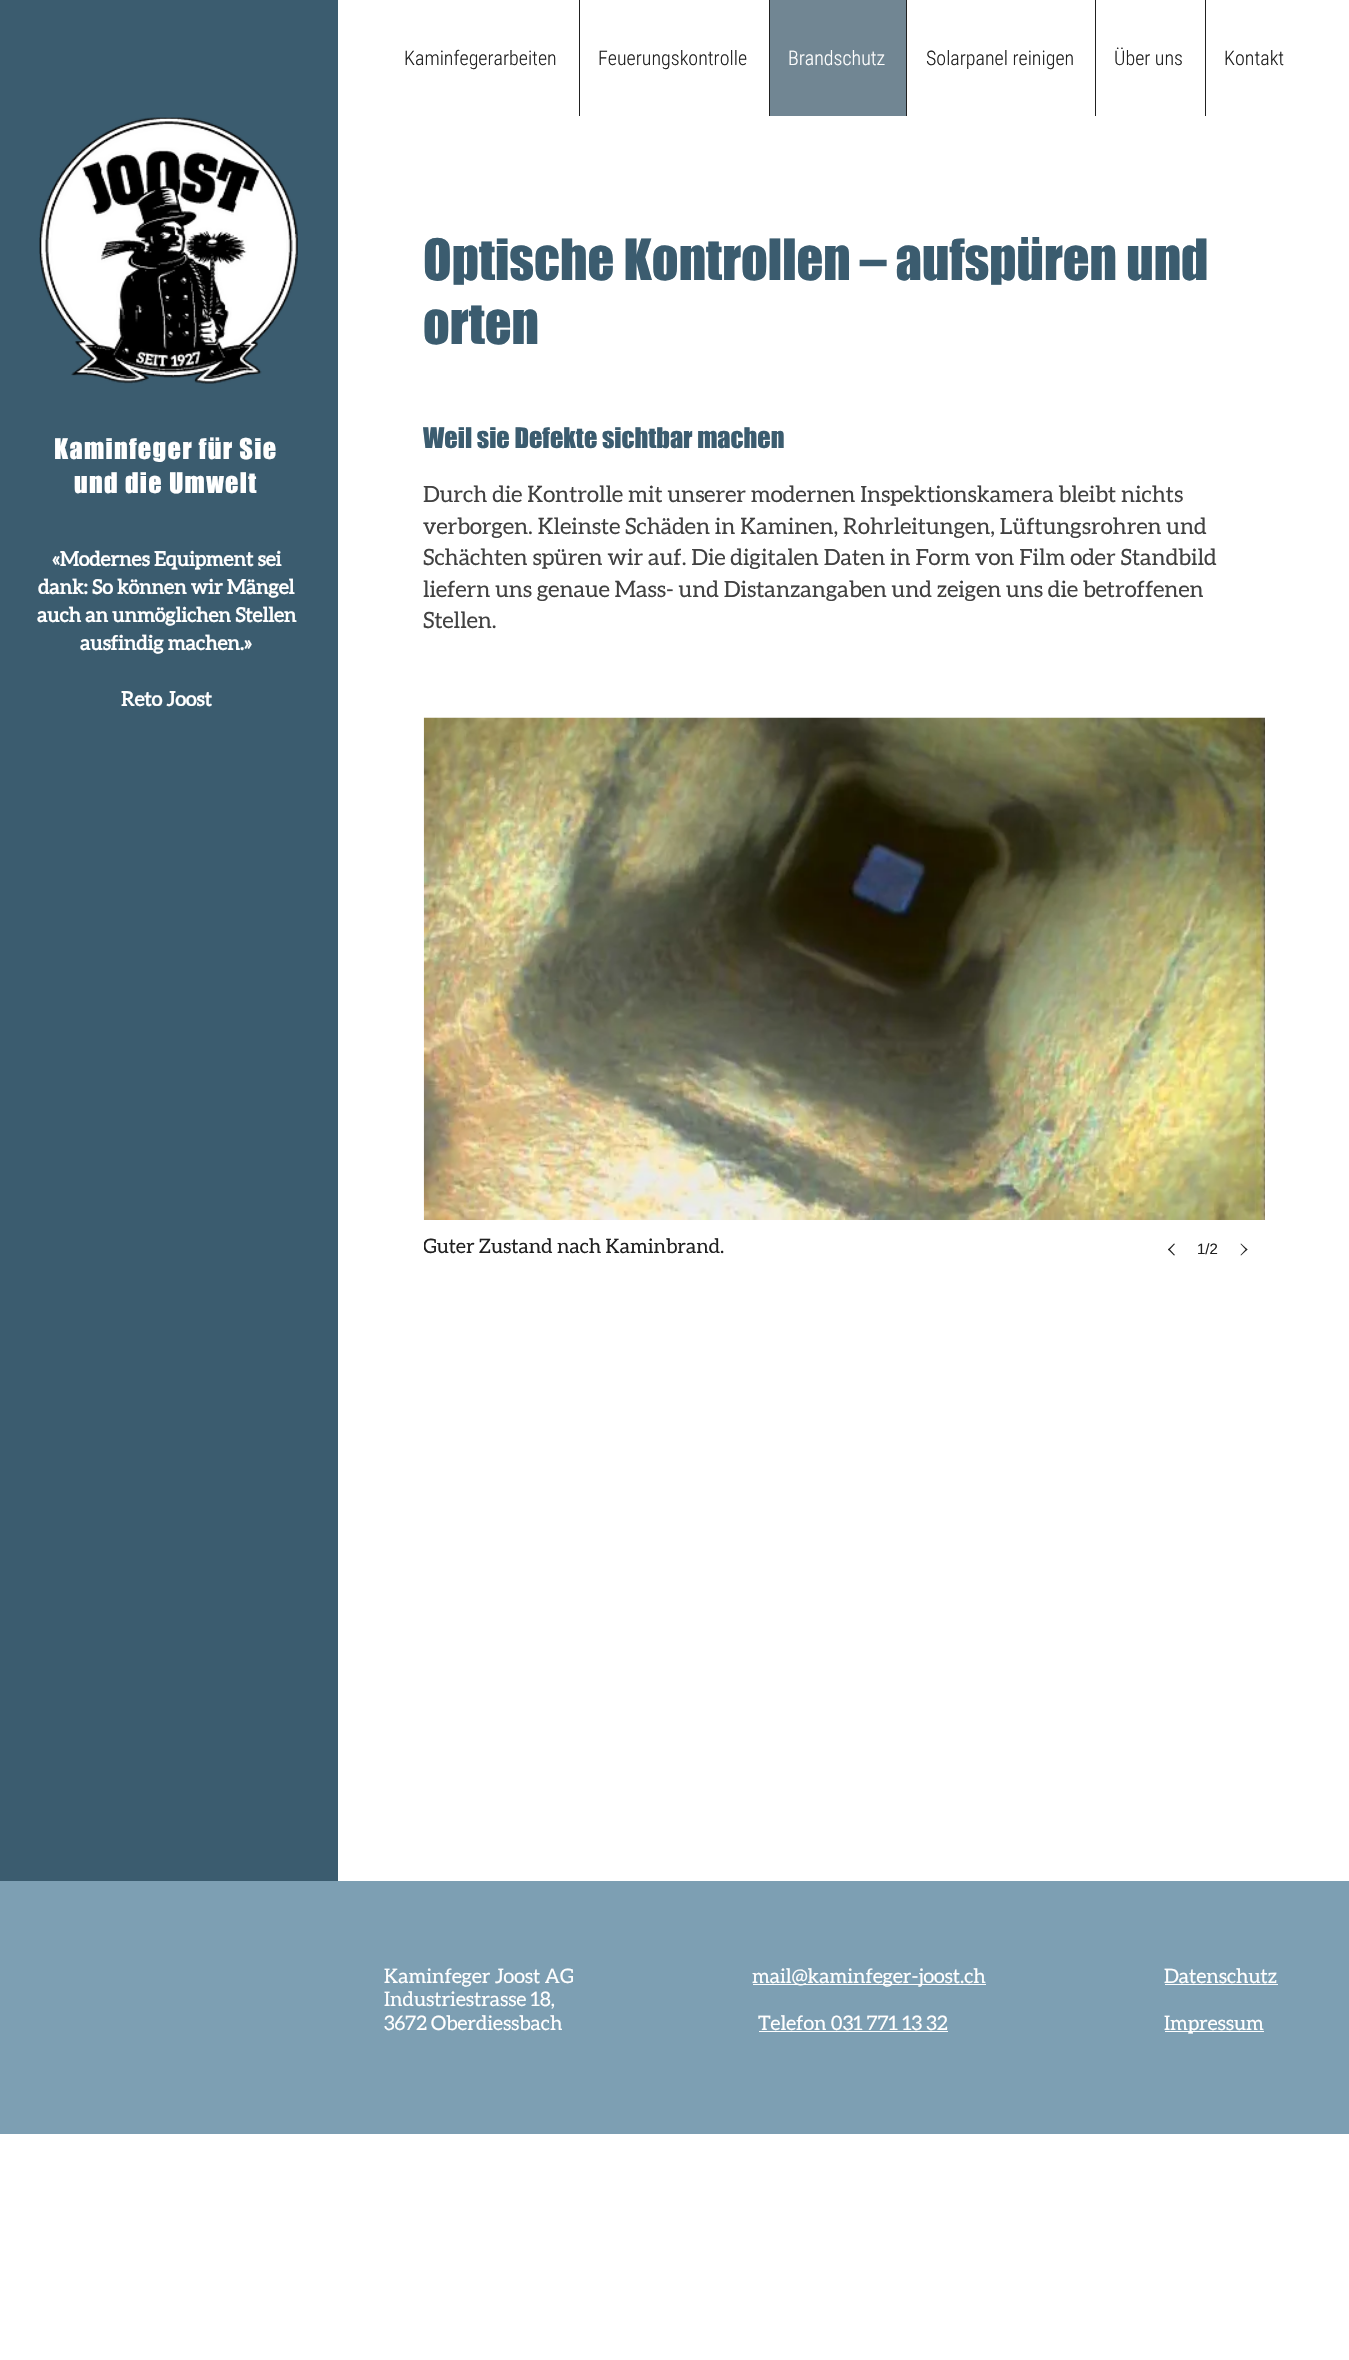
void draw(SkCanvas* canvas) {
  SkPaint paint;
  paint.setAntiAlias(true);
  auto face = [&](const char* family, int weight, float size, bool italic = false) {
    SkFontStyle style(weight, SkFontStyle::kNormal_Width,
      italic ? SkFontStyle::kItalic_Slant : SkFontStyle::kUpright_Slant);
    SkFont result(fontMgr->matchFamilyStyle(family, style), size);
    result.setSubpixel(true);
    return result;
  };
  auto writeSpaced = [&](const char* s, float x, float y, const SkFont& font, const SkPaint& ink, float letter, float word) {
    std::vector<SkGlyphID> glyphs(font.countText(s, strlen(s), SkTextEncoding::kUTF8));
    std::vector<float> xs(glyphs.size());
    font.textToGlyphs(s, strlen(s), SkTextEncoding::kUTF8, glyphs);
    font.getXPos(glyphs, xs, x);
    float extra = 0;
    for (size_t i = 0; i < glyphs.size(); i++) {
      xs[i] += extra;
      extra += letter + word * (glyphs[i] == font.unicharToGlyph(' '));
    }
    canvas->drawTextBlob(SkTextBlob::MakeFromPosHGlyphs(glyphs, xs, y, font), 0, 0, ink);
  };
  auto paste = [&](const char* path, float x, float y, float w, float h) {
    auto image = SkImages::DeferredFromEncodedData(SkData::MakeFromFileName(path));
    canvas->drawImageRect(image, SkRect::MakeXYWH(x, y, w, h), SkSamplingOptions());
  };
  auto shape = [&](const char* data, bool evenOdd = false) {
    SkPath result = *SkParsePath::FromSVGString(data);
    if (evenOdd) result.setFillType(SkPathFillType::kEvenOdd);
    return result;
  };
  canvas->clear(0xffffffff);
  {
    const struct { float x, y, w, h; SkColor color; } items[] = {
      {579, 0, 1, 116, 0xff212121},
      {770, 0, 136, 116, 0xff718693},
      {769, 0, 1, 116, 0xff212121},
      {906, 0, 1, 116, 0xff212121},
      {1095, 0, 1, 116, 0xff212121},
      {1205, 0, 1, 116, 0xff212121},
      {0, 0, 338, 1881, 0xff3b5c6f},
    };
    for (auto [x, y, w, h, color] : items) {
      paint.setColor(color);
      canvas->drawRect(SkRect::MakeXYWH(x, y, w, h), paint);
    }
  }
  paste("img/1.png", 39, 117, 259, 267);
  paste("img/2.png", 423, 717, 842, 503);
  paint.setColor(0xff212121);
  canvas->drawPath(shape("M1168 1249.5L1174 1243.5L1175 1244L1169 1250.5Z"), paint);
  canvas->drawPath(shape("M1168 1249.5L1169 1248.5L1175 1255L1174 1255.5Z"), paint);
  canvas->drawPath(shape("M1240.5 1244L1241 1243.5L1247.5 1249.5L1246.5 1250.5Z"), paint);
  canvas->drawPath(shape("M1240.5 1255L1246.5 1248.5L1247.5 1249.5L1241 1255.5Z"), paint);
  {
    const struct { float x, y, w, h; SkColor color; } items[] = {
      {0, 1881, 1349, 253, 0xff7d9fb3},
      {753, 1984, 233, 1, 0xffffffff},
      {1165, 1984, 113, 1, 0xffffffff},
      {1165, 2031, 99, 1, 0xffffffff},
      {759, 2031, 189, 1, 0xffffffff},
    };
    for (auto [x, y, w, h, color] : items) {
      paint.setColor(color);
      canvas->drawRect(SkRect::MakeXYWH(x, y, w, h), paint);
    }
  }
  auto f0 = face("Roboto Condensed", 300, 20);
  paint.setColor(0xff212121);
  canvas->drawString("Kaminfegerarbeiten", 404, 65, f0, paint);
  canvas->drawString("Feuerungskontrolle", 598, 65, f0, paint);
  paint.setColor(0xffffffff);
  canvas->drawString("Brandschutz", 788, 65, f0, paint);
  paint.setColor(0xff212121);
  {
    const struct { const char* s; float x, y; } items[] = {
      {"Solarpanel reinigen", 926, 65},
      {"Über uns", 1114, 65},
      {"Kontakt", 1224, 65},
    };
    for (auto [s, x, y] : items) {
      canvas->drawString(s, x, y, f0, paint);
    }
  }
  auto f1 = face("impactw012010", 400, 26.25f);
  paint.setColor(0xffffffff);
  writeSpaced("Kaminfeger für Sie", 54, 459, f1, paint, 1.3f, 0);
  writeSpaced("und die Umwelt", 74, 493, f1, paint, 1.3f, 0);
  auto f2 = face("Aleo", 700, 20);
  {
    const struct { const char* s; float x, y; } items[] = {
      {"«Modernes Equipment sei", 52, 566},
      {"dank: So können wir Mängel", 38, 594},
      {"auch an unmöglichen Stellen", 37, 622},
      {"ausfindig machen.»", 80, 650},
      {"Reto Joost", 121, 706},
    };
    for (auto [s, x, y] : items) {
      canvas->drawString(s, x, y, f2, paint);
    }
  }
  auto f3 = face("impactw012010", 400, 52.5f);
  paint.setColor(0xff3b5c6f);
  canvas->drawString("Optische Kontrollen – aufspüren und", 423, 280, f3, paint);
  canvas->drawString("orten", 423, 344, f3, paint);
  canvas->drawString("Weil sie Defekte sichtbar machen", 423, 448, f1, paint);
  auto f4 = face("Aleo", 400, 22.5f);
  paint.setColor(0xff414141);
  {
    const struct { const char* s; float x, y; } items[] = {
      {"Durch die Kontrolle mit unserer modernen Inspektionskamera bleibt nichts", 423, 502},
      {"verborgen. Kleinste Schäden in Kaminen, Rohrleitungen, Lüftungsrohren und", 423, 534},
      {"Schächten spüren wir auf. Die digitalen Daten in Form von Film oder Standbild", 423, 565},
      {"liefern uns genaue Mass- und Distanzangaben und zeigen uns die betroffenen", 423, 597},
      {"Stellen.", 423, 628},
    };
    for (auto [s, x, y] : items) {
      canvas->drawString(s, x, y, f4, paint);
    }
  }
  canvas->save();
  canvas->clipRect(SkRect::MakeXYWH(424, 1233, 679, 28));
  auto f5 = face("Aleo", 400, 20);
  paint.setColor(0xff212121);
  canvas->drawString("Guter Zustand nach Kaminbrand.", 423, 1253, f5, paint);
  canvas->restore();
  auto f6 = face("Liberation Sans", 400, 15);
  canvas->drawString("1/2", 1197, 1254, f6, paint);
  paint.setColor(0xffffffff);
  {
    const struct { const char* s; float x, y; } items[] = {
      {"Kaminfeger Joost AG", 384, 1983},
      {"Industriestrasse 18,", 384, 2006},
      {"3672 Oberdiessbach", 384, 2030},
      {"mail@kaminfeger-joost.ch", 752, 1983},
      {"Datenschutz", 1164, 1983},
      {"Impressum", 1164, 2030},
      {"Telefon 031 771 13 32", 758, 2030},
    };
    for (auto [s, x, y] : items) {
      canvas->drawString(s, x, y, f5, paint);
    }
  }
}
